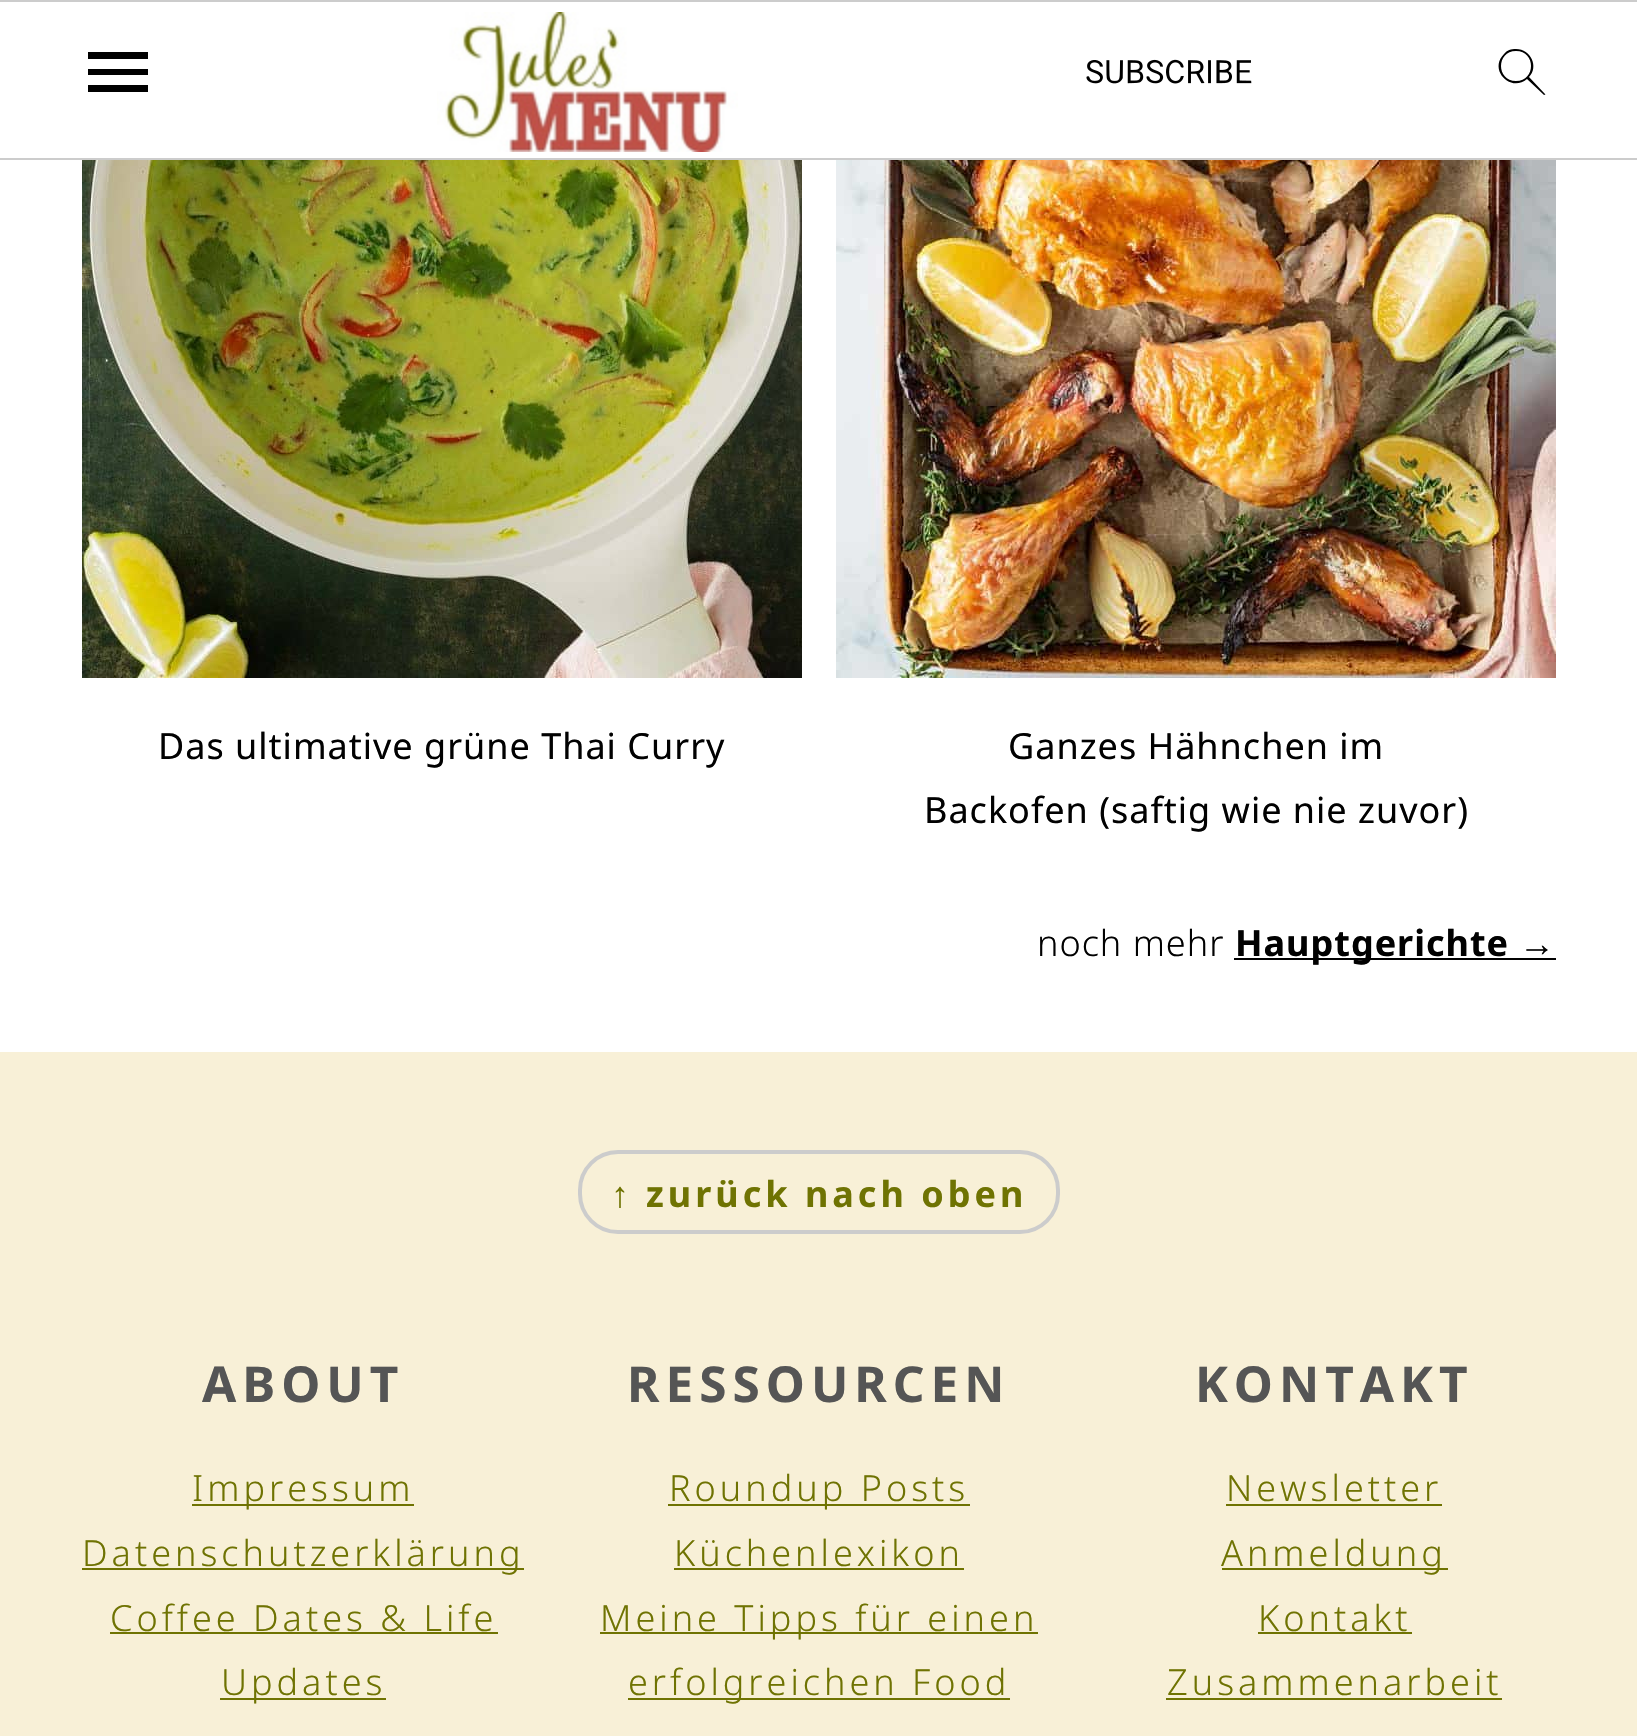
void draw(SkCanvas* canvas) {
  SkPaint paint;
  paint.setAntiAlias(true);
  auto face = [&](const char* family, int weight, float size, bool italic = false) {
    SkFontStyle style(weight, SkFontStyle::kNormal_Width,
      italic ? SkFontStyle::kItalic_Slant : SkFontStyle::kUpright_Slant);
    SkFont result(fontMgr->matchFamilyStyle(family, style), size);
    result.setSubpixel(true);
    return result;
  };
  auto writeSpaced = [&](const char* s, float x, float y, const SkFont& font, const SkPaint& ink, float letter, float word) {
    std::vector<SkGlyphID> glyphs(font.countText(s, strlen(s), SkTextEncoding::kUTF8));
    std::vector<float> xs(glyphs.size());
    font.textToGlyphs(s, strlen(s), SkTextEncoding::kUTF8, glyphs);
    font.getXPos(glyphs, xs, x);
    float extra = 0;
    for (size_t i = 0; i < glyphs.size(); i++) {
      xs[i] += extra;
      extra += letter + word * (glyphs[i] == font.unicharToGlyph(' '));
    }
    canvas->drawTextBlob(SkTextBlob::MakeFromPosHGlyphs(glyphs, xs, y, font), 0, 0, ink);
  };
  auto paste = [&](const char* path, float x, float y, float w, float h) {
    auto image = SkImages::DeferredFromEncodedData(SkData::MakeFromFileName(path));
    canvas->drawImageRect(image, SkRect::MakeXYWH(x, y, w, h), SkSamplingOptions());
  };
  auto shape = [&](const char* data, bool evenOdd = false) {
    SkPath result = *SkParsePath::FromSVGString(data);
    if (evenOdd) result.setFillType(SkPathFillType::kEvenOdd);
    return result;
  };
  canvas->clear(0xffffffff);
  paint.setColor(0xffcccccc);
  canvas->drawRect(SkRect::MakeXYWH(0, 0, 1637, 2), paint);
  canvas->drawRect(SkRect::MakeXYWH(0, 158, 1637, 2), paint);
  paint.setColor(0xff000000);
  canvas->drawPath(shape("M88 92H148V85H88ZM88 75H148V69H88ZM88 52V59H148V52Z"), paint);
  paste("img/1.png", 437, 12, 301, 140);
  paste("img/2.png", 1086, 59, 166, 25);
  canvas->drawPath(shape("M1516 49C1511 49 1507 50 1504 54C1488 70 1511 93 1527 79L1544 95C1545 95 1546 94 1545 94L1529 77C1539 67 1531 49 1516 49ZM1516 51C1536 51 1536 81 1516 81C1496 81 1496 51 1516 51Z"), paint);
  paste("img/3.png", 82, 160, 720, 518);
  paste("img/4.png", 836, 160, 720, 518);
  paint.setColor(0xff010101);
  canvas->drawRect(SkRect::MakeXYWH(1234, 958, 322, 2), paint);
  paint.setColor(0xfff8f0d7);
  canvas->drawRect(SkRect::MakeXYWH(0, 1052, 1637, 684), paint);
  paint.setStroke(true);
  paint.setStrokeWidth(4);
  paint.setColor(0xffcccccc);
  canvas->drawRoundRect(SkRect::MakeXYWH(580, 1152, 478, 80), 38, 38, paint);
  paint.setStroke(false);
  {
    const struct { float x, y, w, h; SkColor color; } items[] = {
      {192, 1504, 222, 2, 0xff6f7302},
      {82, 1568, 442, 2, 0xff6f7302},
      {110, 1632, 388, 2, 0xff6f7302},
      {220, 1698, 166, 2, 0xff6f7302},
      {668, 1504, 302, 2, 0xff6f7302},
      {674, 1568, 290, 2, 0xff6f7302},
      {600, 1632, 438, 2, 0xff6f7302},
      {628, 1698, 382, 2, 0xff6f7302},
      {1226, 1504, 216, 2, 0xff6f7302},
      {1222, 1568, 226, 2, 0xff6f7302},
      {1258, 1632, 154, 2, 0xff6f7302},
      {1166, 1698, 336, 2, 0xff6f7302},
    };
    for (auto [x, y, w, h, color] : items) {
      paint.setColor(color);
      canvas->drawRect(SkRect::MakeXYWH(x, y, w, h), paint);
    }
  }
  auto f0 = face("Noto Sans", 400, 36);
  paint.setColor(0xff010101);
  {
    const struct { const char* s; float x, y; } items[] = {
      {"Das ultimative grüne Thai Curry", 158, 759},
      {"Ganzes Hähnchen im", 1008, 759},
      {"Backofen (saftig wie nie zuvor)", 924, 823},
    };
    for (auto [s, x, y] : items) {
      writeSpaced(s, x, y, f0, paint, 1, 0);
    }
  }
  auto f1 = face("Noto Sans", 300, 36);
  writeSpaced("noch mehr", 1037, 956, f1, paint, 1, 0);
  auto f2 = face("Noto Sans", 700, 36);
  writeSpaced("Hauptgerichte", 1235, 956, f2, paint, 1, 0);
  auto f3 = face("Liberation Sans", 700, 36);
  writeSpaced("→", 1519, 956, f3, paint, 1, 0);
  paint.setColor(0xff6f7302);
  writeSpaced("↑", 611, 1207, f3, paint, 4, 0);
  writeSpaced("zurück nach oben", 646, 1207, f2, paint, 4, 0);
  auto f4 = face("Noto Sans", 700, 49.5f);
  paint.setColor(0xff555555);
  writeSpaced("ABOUT", 202, 1402, f4, paint, 6, 0);
  paint.setColor(0xff6f7302);
  {
    const struct { const char* s; float x, y; } items[] = {
      {"Impressum", 192, 1501},
      {"Datenschutzerklärung", 82, 1566},
      {"Coffee Dates & Life", 110, 1631},
      {"Updates", 221, 1695},
    };
    for (auto [s, x, y] : items) {
      writeSpaced(s, x, y, f1, paint, 4, 0);
    }
  }
  paint.setColor(0xff555555);
  writeSpaced("RESSOURCEN", 627, 1402, f4, paint, 6, 0);
  paint.setColor(0xff6f7302);
  {
    const struct { const char* s; float x, y; } items[] = {
      {"Roundup Posts", 669, 1501},
      {"Küchenlexikon", 674, 1566},
      {"Meine Tipps für einen", 600, 1631},
      {"erfolgreichen Food", 628, 1695},
    };
    for (auto [s, x, y] : items) {
      writeSpaced(s, x, y, f1, paint, 4, 0);
    }
  }
  paint.setColor(0xff555555);
  writeSpaced("KONTAKT", 1195, 1402, f4, paint, 6, 0);
  paint.setColor(0xff6f7302);
  {
    const struct { const char* s; float x, y; } items[] = {
      {"Newsletter", 1226, 1501},
      {"Anmeldung", 1221, 1566},
      {"Kontakt", 1258, 1631},
      {"Zusammenarbeit", 1167, 1695},
    };
    for (auto [s, x, y] : items) {
      writeSpaced(s, x, y, f1, paint, 4, 0);
    }
  }
}
